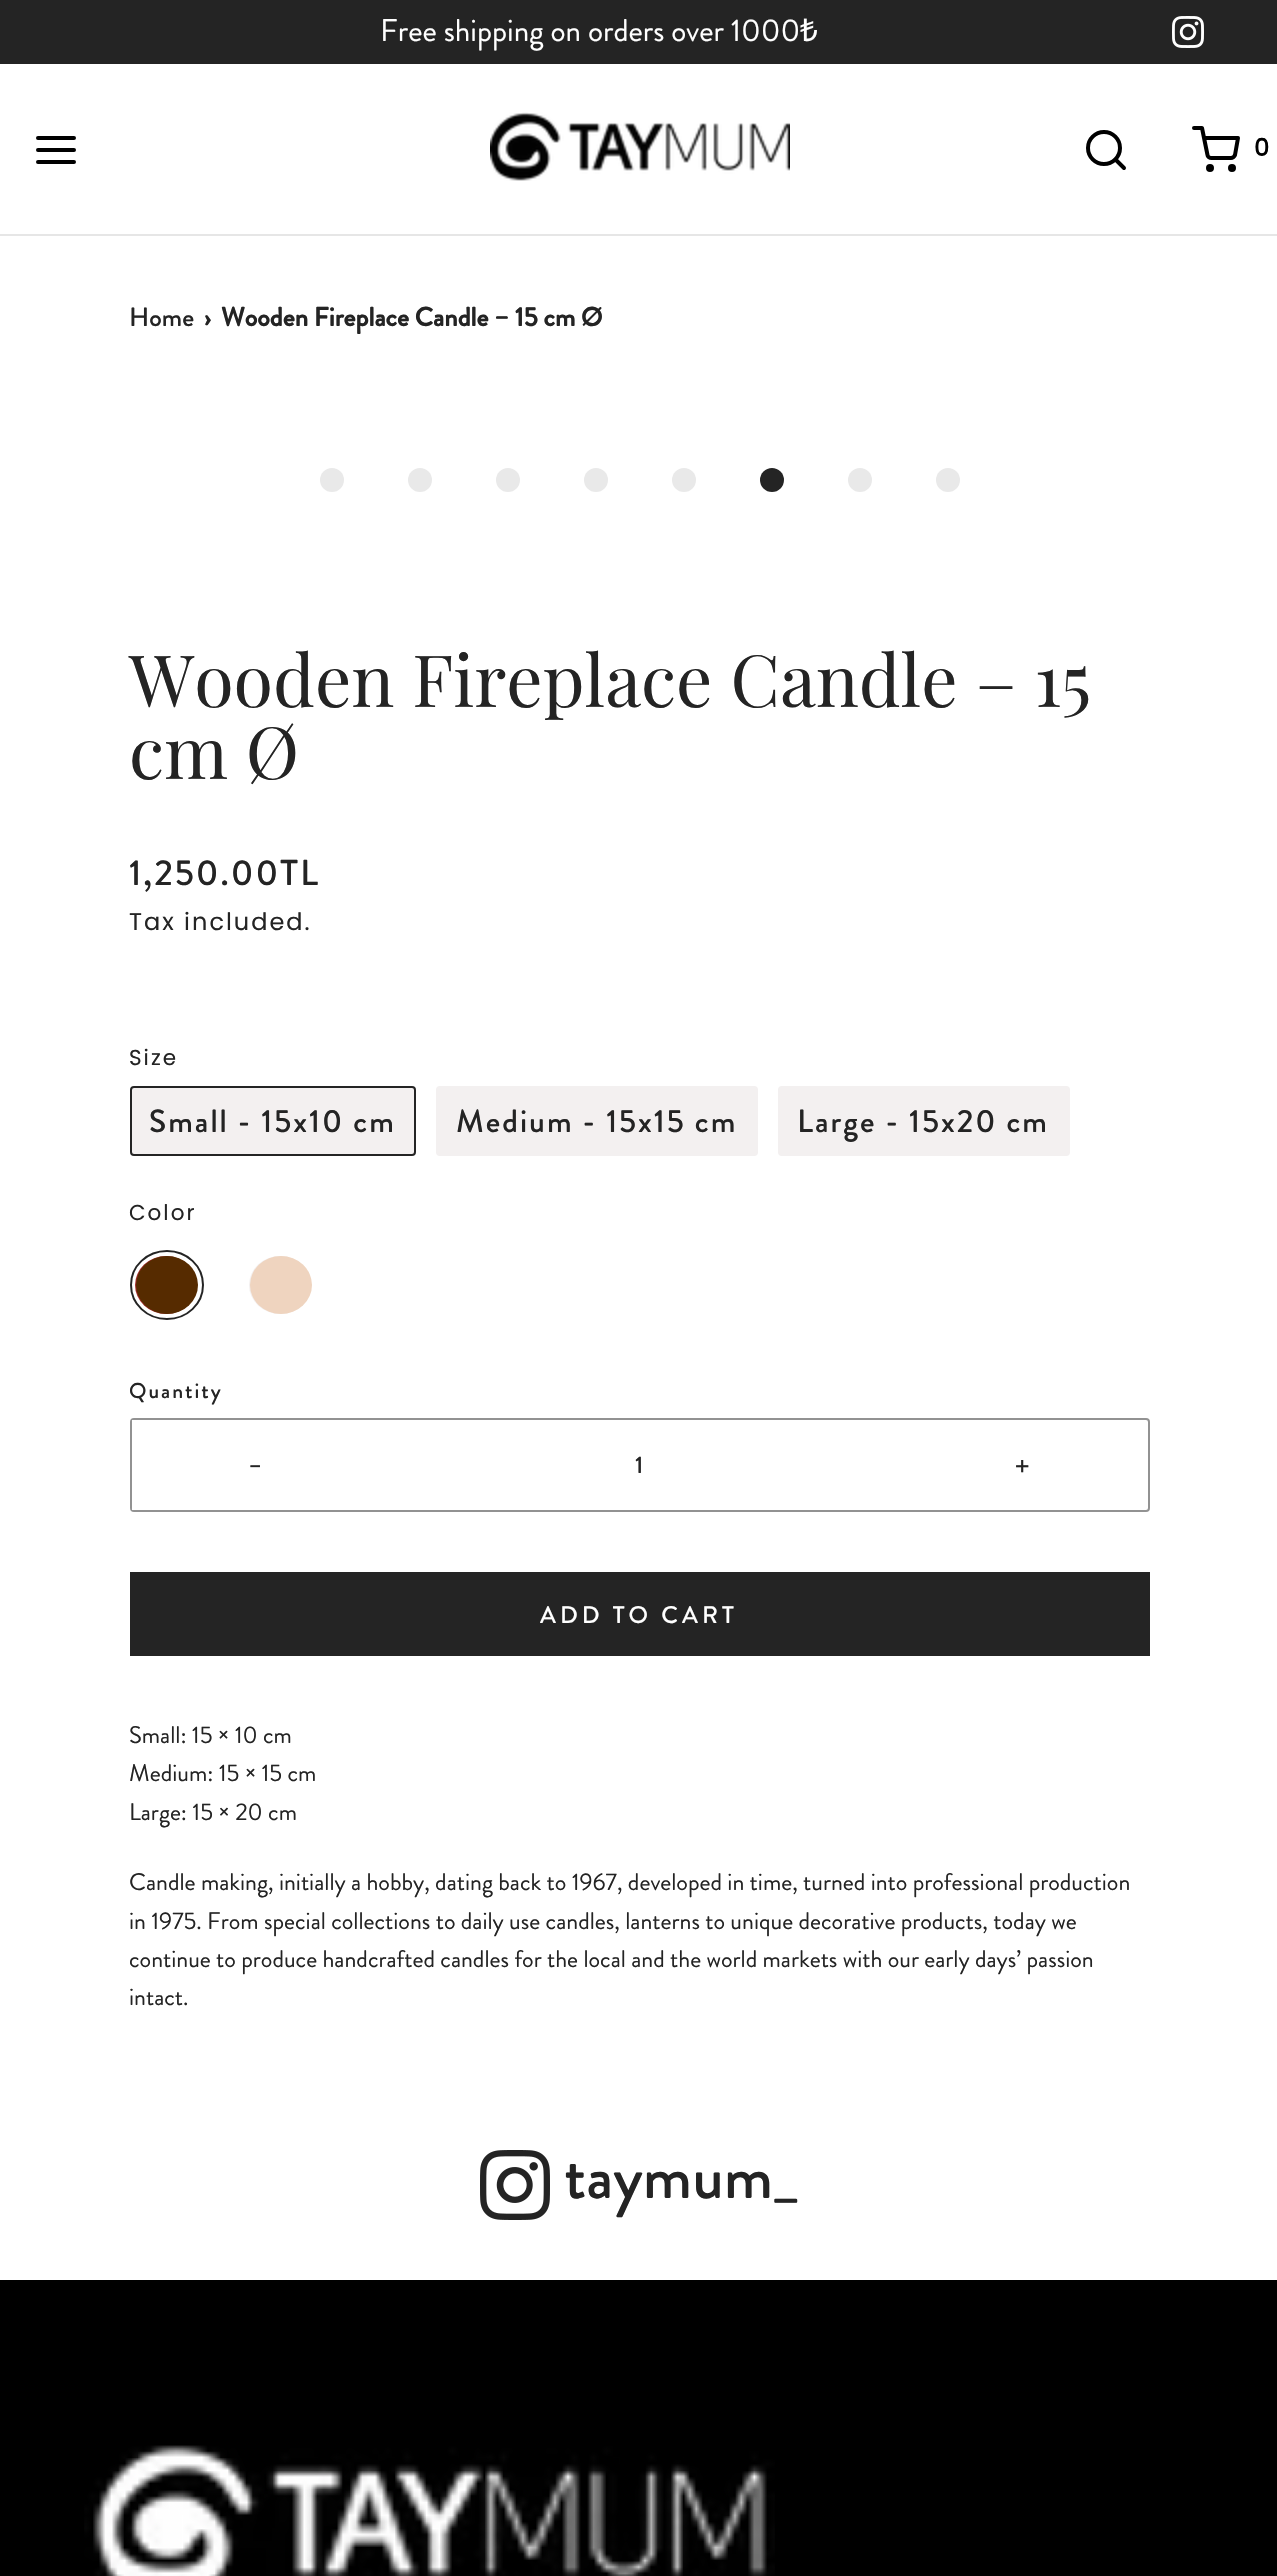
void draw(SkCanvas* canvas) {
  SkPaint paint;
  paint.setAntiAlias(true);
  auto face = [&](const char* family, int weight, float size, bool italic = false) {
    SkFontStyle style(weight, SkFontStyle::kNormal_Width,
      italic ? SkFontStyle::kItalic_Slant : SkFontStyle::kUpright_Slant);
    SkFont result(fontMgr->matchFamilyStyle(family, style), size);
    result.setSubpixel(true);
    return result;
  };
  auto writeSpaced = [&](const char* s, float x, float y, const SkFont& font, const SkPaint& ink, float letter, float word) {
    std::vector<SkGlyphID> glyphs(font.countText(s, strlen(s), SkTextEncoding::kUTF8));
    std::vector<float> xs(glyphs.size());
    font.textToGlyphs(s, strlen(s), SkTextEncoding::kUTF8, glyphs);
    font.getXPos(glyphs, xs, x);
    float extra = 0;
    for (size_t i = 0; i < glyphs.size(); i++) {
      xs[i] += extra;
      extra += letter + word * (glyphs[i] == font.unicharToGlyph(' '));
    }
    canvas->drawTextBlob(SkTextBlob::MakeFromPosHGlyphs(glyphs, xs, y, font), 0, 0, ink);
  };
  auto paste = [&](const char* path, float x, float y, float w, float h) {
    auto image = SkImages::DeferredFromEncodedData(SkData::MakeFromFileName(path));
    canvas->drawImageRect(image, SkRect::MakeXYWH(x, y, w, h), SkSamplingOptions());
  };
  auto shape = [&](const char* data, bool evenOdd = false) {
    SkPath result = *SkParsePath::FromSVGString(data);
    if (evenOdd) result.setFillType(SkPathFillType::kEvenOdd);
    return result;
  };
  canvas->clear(0xffffffff);
  paint.setColor(0xff242424);
  canvas->drawRect(SkRect::MakeXYWH(0, 0, 1277, 64), paint);
  paste("img/1.png", 1172, 16, 32, 32);
  paint.setColor(0xffe6e6e6);
  canvas->drawRect(SkRect::MakeXYWH(0, 234, 1277, 2), paint);
  paint.setStroke(true);
  paint.setStrokeWidth(4);
  paint.setStrokeCap(SkPaint::kRound_Cap);
  paint.setStrokeJoin(SkPaint::kRound_Join);
  paint.setColor(0xff000000);
  canvas->drawPath(shape("M38 150H74M38 138H74M38 162H74"), paint);
  paste("img/2.png", 490, 112, 300, 69);
  paint.setStrokeCap(SkPaint::kButt_Cap);
  paint.setStrokeJoin(SkPaint::kMiter_Join);
  canvas->drawCircle(1104, 148, 16, paint);
  paint.setStrokeCap(SkPaint::kRound_Cap);
  paint.setStrokeJoin(SkPaint::kRound_Join);
  canvas->drawPath(shape("M1124 168L1115.5 159.5"), paint);
  paint.setStrokeCap(SkPaint::kButt_Cap);
  paint.setStrokeJoin(SkPaint::kMiter_Join);
  canvas->drawCircle(1210, 168, 2, paint);
  canvas->drawCircle(1232, 168, 2, paint);
  paint.setStrokeCap(SkPaint::kRound_Cap);
  paint.setStrokeJoin(SkPaint::kRound_Join);
  canvas->drawPath(shape("M1194 128H1202L1207.5 155C1207.5 156.5 1209.5 158 1211.5 158H1231C1232.5 158 1234.5 156.5 1235 155L1238 138H1204"), paint);
  paint.setStroke(false);
  paint.setColor(0xffe9e9e9);
  canvas->drawCircle(332, 480, 12, paint);
  canvas->drawCircle(420, 480, 12, paint);
  canvas->drawCircle(508, 480, 12, paint);
  canvas->drawCircle(596, 480, 12, paint);
  canvas->drawCircle(684, 480, 12, paint);
  paint.setColor(0xff242424);
  canvas->drawCircle(772, 480, 12, paint);
  paint.setColor(0xffe9e9e9);
  canvas->drawCircle(860, 480, 12, paint);
  canvas->drawCircle(948, 480, 12, paint);
  paint.setColor(0xfff3f0f0);
  canvas->drawRoundRect(SkRect::MakeXYWH(131, 1087, 284, 68), 3, 3, paint);
  paint.setStroke(true);
  paint.setStrokeWidth(2);
  paint.setStrokeCap(SkPaint::kButt_Cap);
  paint.setStrokeJoin(SkPaint::kMiter_Join);
  paint.setColor(0xff242424);
  canvas->drawRoundRect(SkRect::MakeXYWH(131, 1087, 284, 68), 3, 3, paint);
  paint.setStroke(false);
  paint.setColor(0xfff3f0f0);
  canvas->drawRoundRect(SkRect::MakeXYWH(436, 1086, 322, 70), 4, 4, paint);
  canvas->drawRoundRect(SkRect::MakeXYWH(778, 1086, 292, 70), 4, 4, paint);
  paint.setColor(0xffa52a2a);
  canvas->drawOval(SkRect::MakeXYWH(135, 1256, 62, 58), paint);
  paste("img/3.png", 136, 1256, 62, 58);
  paint.setStroke(true);
  paint.setColor(0xff242424);
  canvas->drawPath(shape("M167 1251C187 1251 203 1266 203 1285C203 1304 187 1319 167 1319C147 1319 131 1304 131 1285C131 1266 147 1251 167 1251Z"), paint);
  paint.setStroke(false);
  paint.setColor(0xfff3f0f0);
  canvas->drawOval(SkRect::MakeXYWH(249, 1256, 62, 58), paint);
  paste("img/4.png", 250, 1256, 62, 58);
  paint.setStroke(true);
  paint.setColor(0xff929292);
  canvas->drawRoundRect(SkRect::MakeXYWH(131, 1419, 1018, 92), 3, 3, paint);
  paint.setStroke(false);
  paint.setColor(0xffffffff);
  canvas->drawRect(SkRect::MakeXYWH(132, 1420, 2, 90), paint);
  paint.setColor(0xff242424);
  canvas->drawRect(SkRect::MakeXYWH(130, 1572, 1020, 84), paint);
  paste("img/5.png", 480, 2150, 70, 70);
  paint.setColor(0xff000000);
  canvas->drawRect(SkRect::MakeXYWH(0, 2280, 1277, 296), paint);
  paste("img/6.png", 84, 2445, 691, 131);
  auto f0 = face("Brandon Grotesque", 400, 31.25f);
  paint.setColor(0xffffffff);
  canvas->drawString("Free shipping on orders over 1000", 380, 41, f0, paint);
  auto f1 = face("Noto Sans", 400, 31.25f);
  canvas->drawString("₺", 800, 41, f1, paint);
  auto f2 = face("Poppins", 700, 24);
  paint.setColor(0xff000000);
  canvas->drawString("0", 1254, 156, f2, paint);
  auto f3 = face("Brandon Grotesque", 500, 26.4f);
  paint.setColor(0xff242424);
  canvas->drawString("Home", 129, 326, f3, paint);
  auto f4 = face("Brandon Grotesque", 700, 26.4f);
  canvas->drawString("›", 204, 326, f4, paint);
  canvas->drawString("Wooden Fireplace Candle – 15 cm Ø", 221, 326, f4, paint);
  auto f5 = face("Playfair Display", 400, 72);
  canvas->drawString("Wooden Fireplace Candle – 15", 129, 707, f5, paint);
  canvas->drawString("cm Ø", 129, 779, f5, paint);
  auto f6 = face("Brandon Grotesque", 500, 36);
  writeSpaced("1,250.00TL", 129, 885, f6, paint, 2, 0);
  auto f7 = face("Poppins", 400, 24);
  writeSpaced("Tax included.", 129, 930, f7, paint, 2, 0);
  auto f8 = face("Poppins", 400, 21.5f);
  writeSpaced("Size", 129, 1065, f8, paint, 2, 0);
  auto f9 = face("Brandon Grotesque", 500, 32);
  {
    const struct { const char* s; float x, y; } items[] = {
      {"Small - 15x10 cm", 149, 1132},
      {"Medium - 15x15 cm", 456, 1132},
      {"Large - 15x20 cm", 797, 1132},
    };
    for (auto [s, x, y] : items) {
      writeSpaced(s, x, y, f9, paint, 2, 0);
    }
  }
  writeSpaced("Color", 129, 1220, f8, paint, 2, 0);
  auto f10 = face("Brandon Grotesque", 500, 21.5f);
  writeSpaced("Quantity", 129, 1398, f10, paint, 2, 0);
  canvas->drawString("-", 249, 1475, f7, paint);
  auto f11 = face("Brandon Grotesque", 500, 24);
  canvas->drawString("1", 635, 1473, f11, paint);
  canvas->drawString("+", 1014, 1475, f7, paint);
  paint.setColor(0xffffffff);
  writeSpaced("ADD TO CART", 540, 1623, f11, paint, 4, 0);
  auto f12 = face("Brandon Grotesque", 400, 24);
  paint.setColor(0xff242424);
  {
    const struct { const char* s; float x, y; } items[] = {
      {"Small: 15 × 10 cm", 129, 1743},
      {"Medium: 15 × 15 cm", 129, 1781},
      {"Large: 15 × 20 cm", 129, 1820},
      {"Candle making, initially a hobby, dating back to 1967, developed in time, turned into professional production", 129, 1890},
      {"in 1975. From special collections to daily use candles, lanterns to unique decorative products, today we", 129, 1929},
      {"continue to produce handcrafted candles for the local and the world markets with our early days’ passion", 129, 1967},
      {"intact.", 129, 2005},
    };
    for (auto [s, x, y] : items) {
      canvas->drawString(s, x, y, f12, paint);
    }
  }
  auto f13 = face("Brandon Grotesque", 500, 64);
  canvas->drawString("taymum_", 564, 2198, f13, paint);
}
